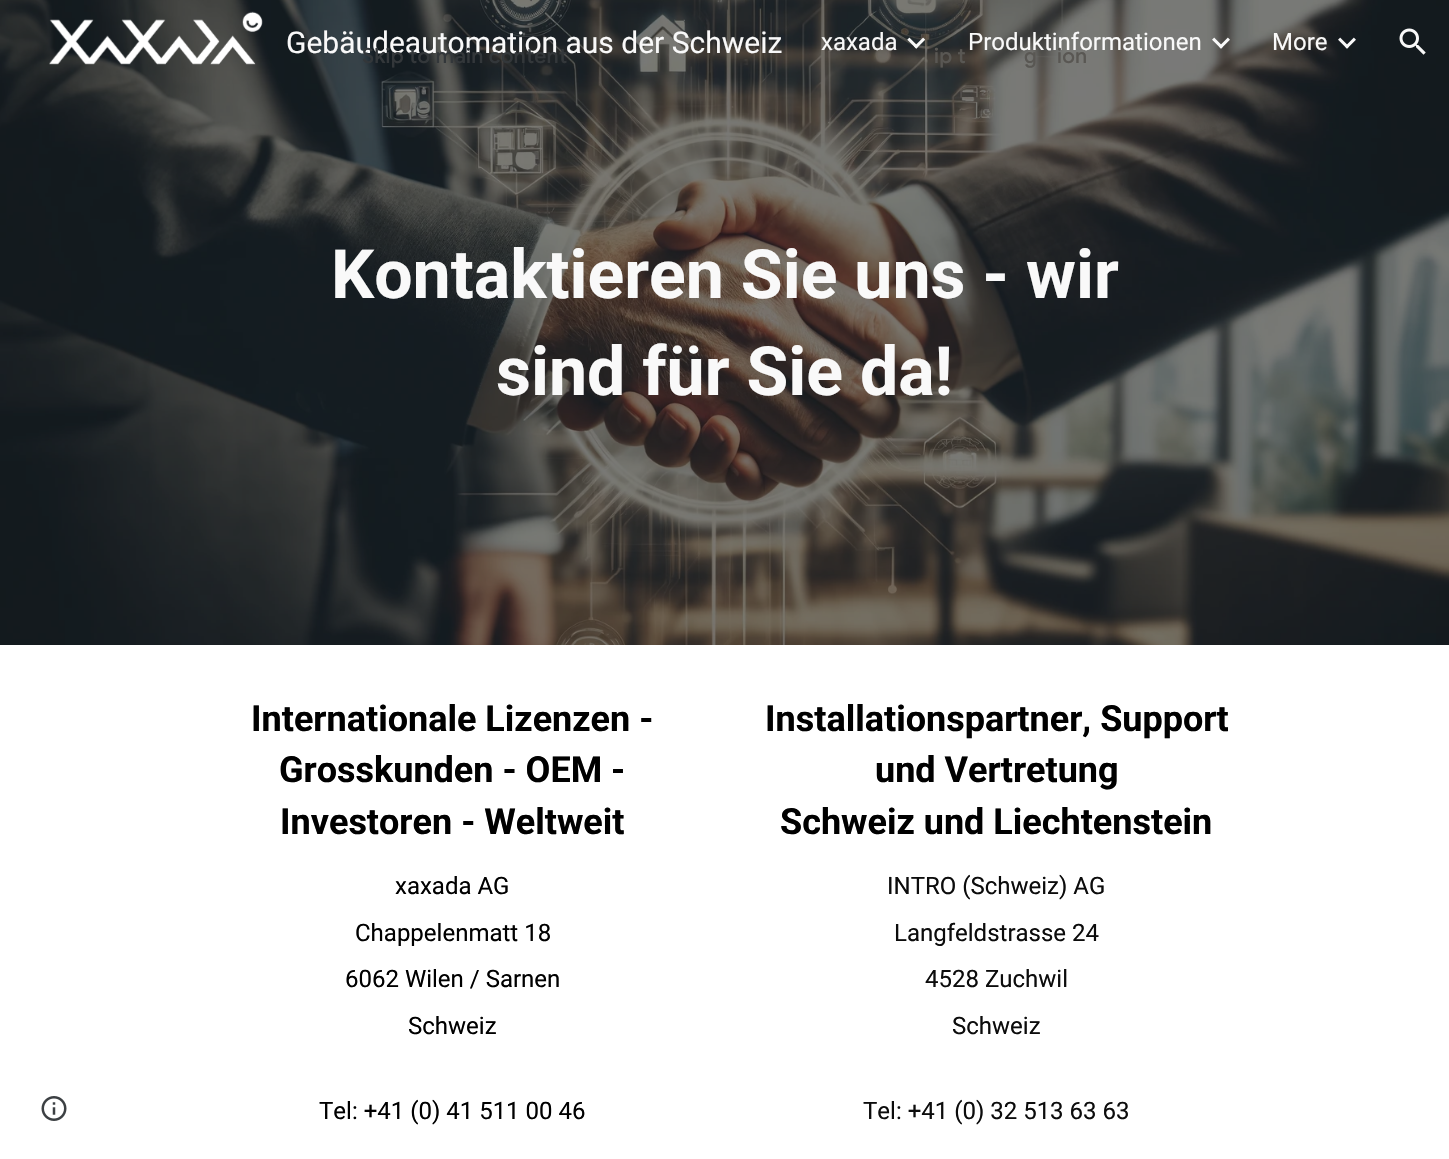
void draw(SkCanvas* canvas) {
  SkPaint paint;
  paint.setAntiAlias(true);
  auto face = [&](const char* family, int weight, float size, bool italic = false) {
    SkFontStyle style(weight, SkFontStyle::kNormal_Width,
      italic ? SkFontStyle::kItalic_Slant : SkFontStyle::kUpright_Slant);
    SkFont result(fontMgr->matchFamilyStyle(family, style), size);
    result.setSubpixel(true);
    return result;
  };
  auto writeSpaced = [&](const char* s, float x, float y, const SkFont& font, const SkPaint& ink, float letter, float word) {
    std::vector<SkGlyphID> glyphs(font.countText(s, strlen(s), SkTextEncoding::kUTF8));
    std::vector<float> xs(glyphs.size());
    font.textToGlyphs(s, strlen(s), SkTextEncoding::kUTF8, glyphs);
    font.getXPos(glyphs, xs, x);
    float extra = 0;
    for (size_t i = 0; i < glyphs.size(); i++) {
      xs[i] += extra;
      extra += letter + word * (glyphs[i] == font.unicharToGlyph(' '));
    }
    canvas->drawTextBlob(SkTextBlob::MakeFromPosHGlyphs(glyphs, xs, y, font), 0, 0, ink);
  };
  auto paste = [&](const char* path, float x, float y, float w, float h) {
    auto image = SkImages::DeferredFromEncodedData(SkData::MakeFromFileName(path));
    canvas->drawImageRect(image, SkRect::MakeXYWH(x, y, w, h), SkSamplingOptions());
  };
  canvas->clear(0xffffffff);
  paste("img/7.png", 0, 0, 1449, 645);
  paste("img/1.png", 49, 11, 214, 54);
  paste("img/2.png", 907, 37, 19, 12);
  paste("img/3.png", 1212, 37, 18, 12);
  paste("img/4.png", 1338, 37, 18, 12);
  paste("img/5.png", 1399, 28, 27, 27);
  paste("img/6.png", 41, 1096, 26, 25);
  auto f0 = face("Roboto", 400, 30);
  paint.setColor(0xfff9f9f9);
  canvas->drawString("Gebäudeautomation aus der Schweiz", 286, 53, f0, paint);
  auto f1 = face("Roboto", 400, 24);
  {
    const struct { const char* s; float x, y; } items[] = {
      {"xaxada", 821, 50},
      {"Produktinformationen", 968, 50},
      {"More", 1272, 50},
    };
    for (auto [s, x, y] : items) {
      canvas->drawString(s, x, y, f1, paint);
    }
  }
  auto f2 = face("Roboto", 700, 68);
  canvas->drawString("Kontaktieren Sie uns - wir", 331, 298, f2, paint);
  canvas->drawString("sind für Sie da!", 496, 395, f2, paint);
  auto f3 = face("Roboto", 700, 36);
  paint.setColor(0xff000000);
  {
    const struct { const char* s; float x, y; } items[] = {
      {"Internationale Lizenzen -", 251, 731},
      {"Grosskunden - OEM -", 279, 782},
      {"Investoren - Weltweit", 280, 834},
    };
    for (auto [s, x, y] : items) {
      canvas->drawString(s, x, y, f3, paint);
    }
  }
  {
    const struct { const char* s; float x, y; } items[] = {
      {"xaxada AG", 395, 894},
      {"Chappelenmatt 18", 355, 941},
      {"6062 Wilen / Sarnen", 345, 987},
      {"Schweiz", 408, 1034},
      {"Tel: +41 (0) 41 511 00 46", 319, 1119},
    };
    for (auto [s, x, y] : items) {
      canvas->drawString(s, x, y, f1, paint);
    }
  }
  {
    const struct { const char* s; float x, y; } items[] = {
      {"Installationspartner, Support", 765, 731},
      {"und Vertretung", 875, 782},
      {"Schweiz und Liechtenstein", 780, 834},
    };
    for (auto [s, x, y] : items) {
      canvas->drawString(s, x, y, f3, paint);
    }
  }
  paint.setColor(0xff0c0c0c);
  {
    const struct { const char* s; float x, y; } items[] = {
      {"INTRO (Schweiz) AG", 887, 894},
      {"Langfeldstrasse 24", 894, 941},
      {"4528 Zuchwil", 925, 987},
      {"Schweiz", 952, 1034},
      {"Tel: +41 (0) 32 513 63 63", 863, 1119},
    };
    for (auto [s, x, y] : items) {
      canvas->drawString(s, x, y, f1, paint);
    }
  }
  auto f4 = face("Google Sans", 500, 21);
  paint.setColor(0xff33373a);
  writeSpaced("Skip to main content", 362, 63, f4, paint, 0.25f, 0);
  paint.setColor(0xff595753);
  {
    const struct { const char* s; float x, y; } items[] = {
      {"ip t", 934, 63},
      {"g", 1024, 63},
      {"ion", 1057, 63},
    };
    for (auto [s, x, y] : items) {
      writeSpaced(s, x, y, f4, paint, 0.25f, 0);
    }
  }
}
